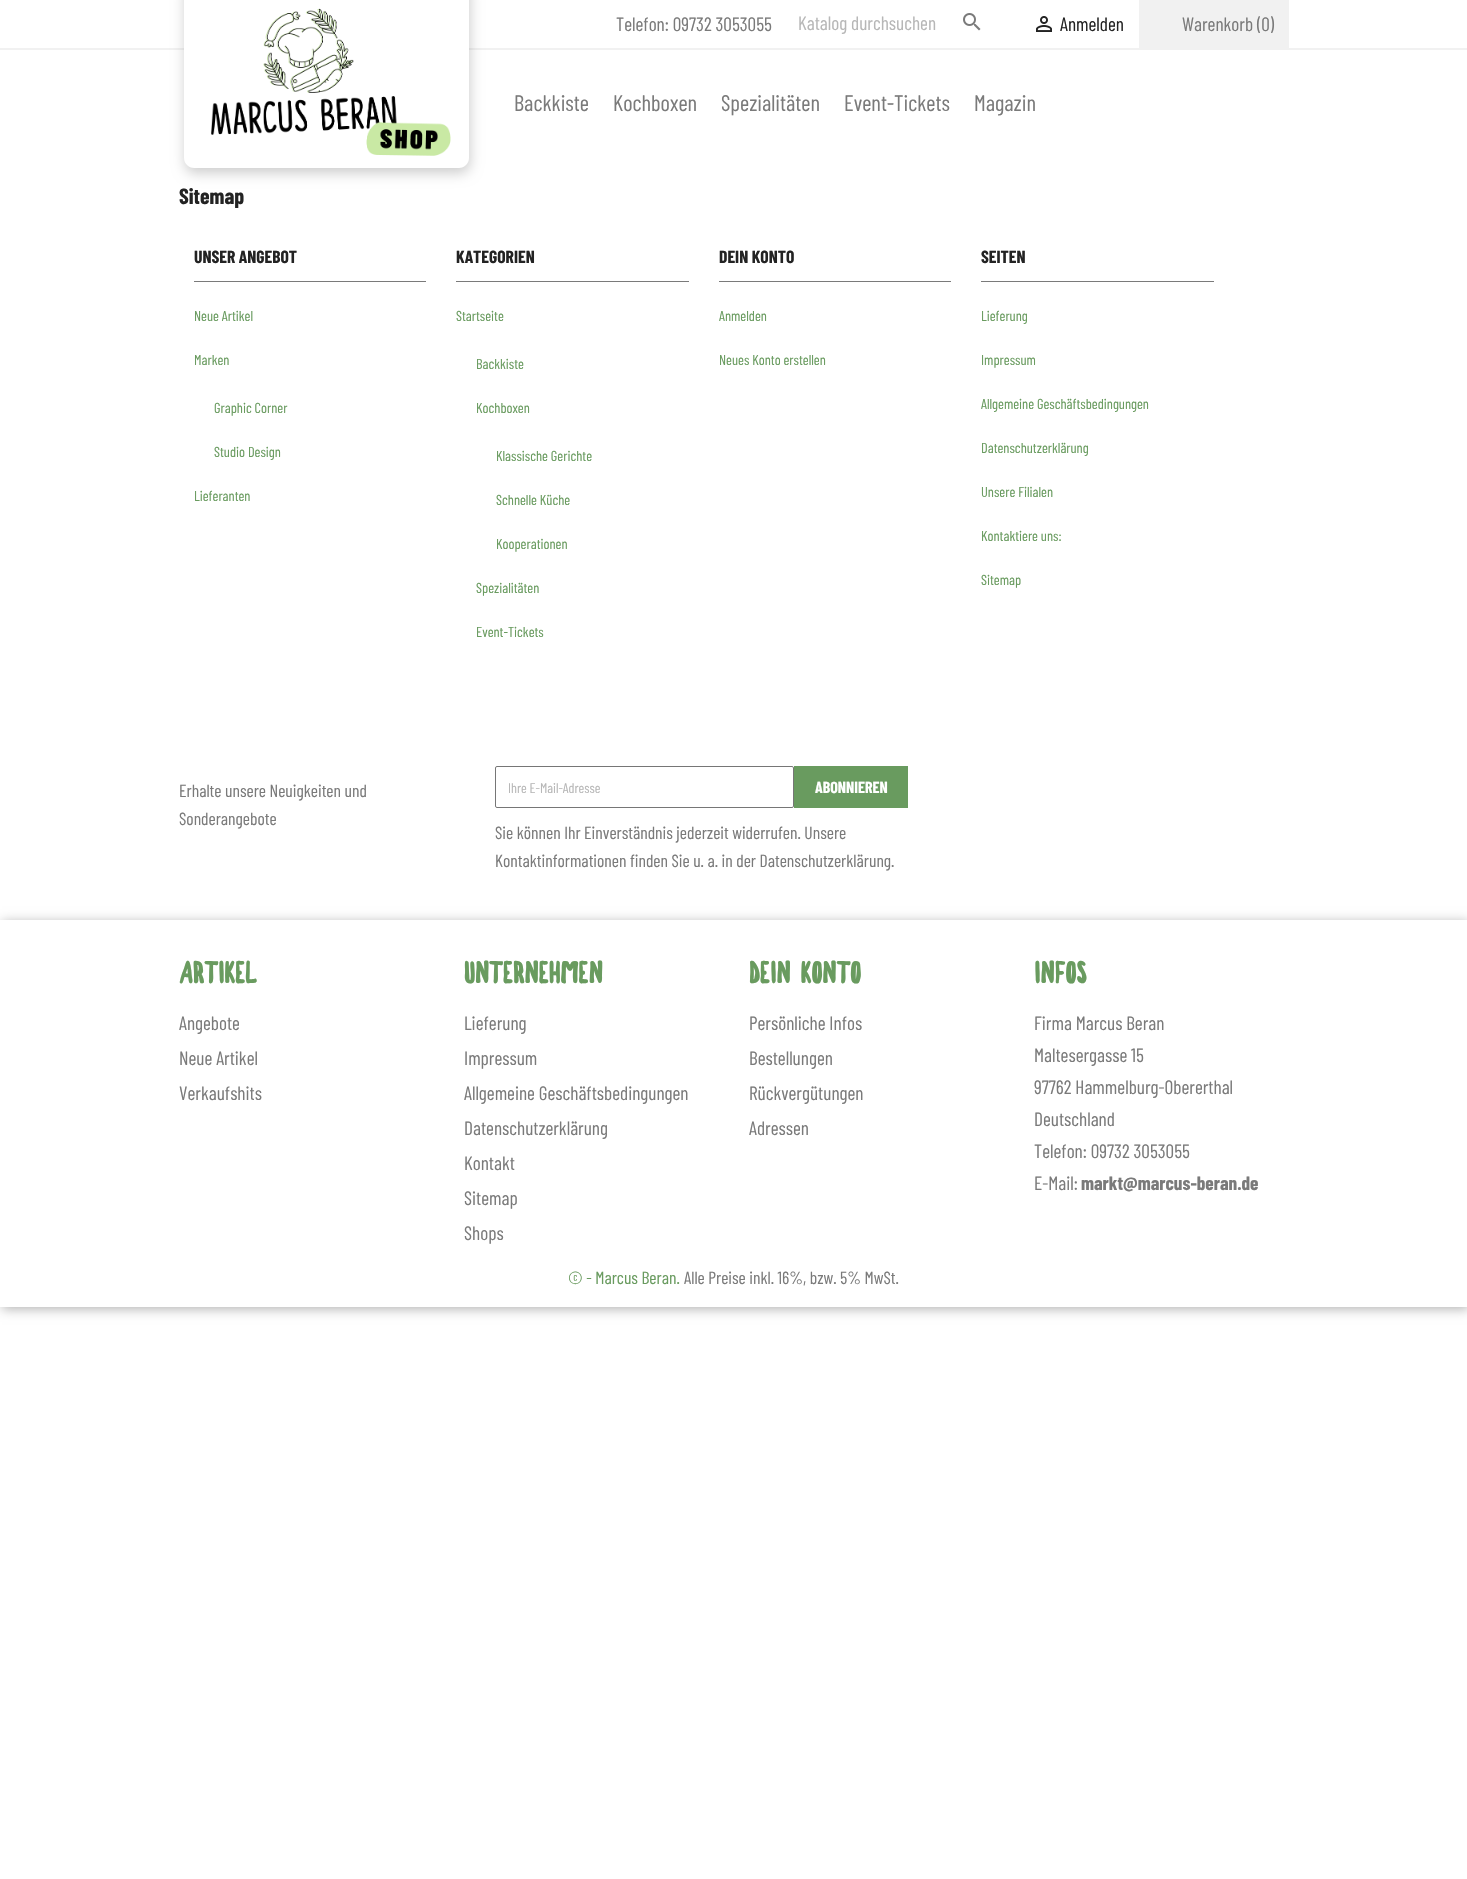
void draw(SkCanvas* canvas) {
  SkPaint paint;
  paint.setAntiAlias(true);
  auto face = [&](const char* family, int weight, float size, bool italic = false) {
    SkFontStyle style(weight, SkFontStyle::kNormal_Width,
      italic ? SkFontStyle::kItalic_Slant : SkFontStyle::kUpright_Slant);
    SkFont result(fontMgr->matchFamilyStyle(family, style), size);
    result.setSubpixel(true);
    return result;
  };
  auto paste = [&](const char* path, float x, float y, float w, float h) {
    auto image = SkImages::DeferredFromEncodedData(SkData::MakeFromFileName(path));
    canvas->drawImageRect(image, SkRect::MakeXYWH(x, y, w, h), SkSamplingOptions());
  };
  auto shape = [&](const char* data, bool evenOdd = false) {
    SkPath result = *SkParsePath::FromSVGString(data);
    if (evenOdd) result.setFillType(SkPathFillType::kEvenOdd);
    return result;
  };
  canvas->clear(0xffffffff);
  paint.setColor(0xfff1f1f1);
  canvas->drawRect(SkRect::MakeXYWH(0, 48, 1467, 2), paint);
  paste("img/1.png", 963, 13, 18, 18);
  paste("img/2.png", 1036, 16, 16, 16);
  canvas->drawRect(SkRect::MakeXYWH(1139, 0, 150, 48), paint);
  paint.setColor(0x33000000);
  paint.setMaskFilter(SkMaskFilter::MakeBlur(kNormal_SkBlurStyle, 6.5f));
  canvas->drawRoundRect(SkRect::MakeXYWH(185, -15, 285, 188), 10, 10, paint);
  paint.setMaskFilter(nullptr);
  paint.setColor(0xffffffff);
  canvas->drawPath(shape("M184-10H469V158C469 163.5 464.5 168 459 168H194C188.5 168 184 163.5 184 158Z"), paint);
  paste("img/3.png", 211, 8, 240, 148);
  {
    const struct { float x, y, w, h; SkColor color; } items[] = {
      {194, 281, 232, 1, 0xff7a7a7a},
      {456, 281, 233, 1, 0xff7a7a7a},
      {719, 281, 232, 1, 0xff7a7a7a},
      {981, 281, 233, 1, 0xff7a7a7a},
    };
    for (auto [x, y, w, h, color] : items) {
      paint.setColor(color);
      canvas->drawRect(SkRect::MakeXYWH(x, y, w, h), paint);
    }
  }
  paint.setStroke(true);
  paint.setStrokeWidth(1);
  paint.setColor(0xff767676);
  canvas->drawRoundRect(SkRect::MakeXYWH(495.5f, 766.5f, 298, 41), 1.5f, 1.5f, paint);
  paint.setStroke(false);
  paint.setColor(0xff699b5f);
  canvas->drawRect(SkRect::MakeXYWH(794, 766, 114, 42), paint);
  canvas->save();
  canvas->clipPath(shape("M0 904H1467V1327H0ZM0 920H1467V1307H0Z", true), true);
  paint.setColor(0x4d000000);
  paint.setMaskFilter(SkMaskFilter::MakeBlur(kNormal_SkBlurStyle, 5.5f));
  canvas->drawRect(SkRect::MakeXYWH(2, 922, 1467, 387), paint);
  paint.setMaskFilter(nullptr);
  canvas->restore();
  auto f0 = face("Barlow Condensed", 400, 19.25f);
  paint.setColor(0xff7a7a7a);
  canvas->drawString("Telefon: 09732 3053055", 616, 31, f0, paint);
  paint.setColor(0xffb7b7b7);
  canvas->drawString("Katalog durchsuchen", 798, 30, f0, paint);
  paint.setColor(0xff232323);
  canvas->drawString("Anmelden", 1060, 31, f0, paint);
  paint.setColor(0xff7a7a7a);
  canvas->drawString("Warenkorb (0)", 1182, 31, f0, paint);
  auto f1 = face("Barlow Condensed", 400, 22.5f);
  {
    const struct { const char* s; float x, y; } items[] = {
      {"Backkiste", 514, 111},
      {"Kochboxen", 613, 111},
      {"Spezialitäten", 721, 111},
      {"Event-Tickets", 844, 111},
      {"Magazin", 974, 111},
    };
    for (auto [s, x, y] : items) {
      canvas->drawString(s, x, y, f1, paint);
    }
  }
  auto f2 = face("Barlow Condensed", 700, 22);
  paint.setColor(0xff232323);
  canvas->drawString("Sitemap", 179, 204, f2, paint);
  auto f3 = face("Barlow Condensed", 700, 17.6f);
  canvas->drawString("UNSER ANGEBOT", 194, 263, f3, paint);
  auto f4 = face("Barlow Condensed", 400, 14.4f);
  paint.setColor(0xff699b5f);
  {
    const struct { const char* s; float x, y; } items[] = {
      {"Neue Artikel", 194, 321},
      {"Marken", 194, 365},
      {"Graphic Corner", 214, 413},
      {"Studio Design", 214, 457},
      {"Lieferanten", 194, 501},
    };
    for (auto [s, x, y] : items) {
      canvas->drawString(s, x, y, f4, paint);
    }
  }
  paint.setColor(0xff232323);
  canvas->drawString("KATEGORIEN", 456, 263, f3, paint);
  paint.setColor(0xff699b5f);
  {
    const struct { const char* s; float x, y; } items[] = {
      {"Startseite", 456, 321},
      {"Backkiste", 476, 369},
      {"Kochboxen", 476, 413},
      {"Klassische Gerichte", 496, 461},
      {"Schnelle Küche", 496, 505},
      {"Kooperationen", 496, 549},
      {"Spezialitäten", 476, 593},
      {"Event-Tickets", 476, 637},
    };
    for (auto [s, x, y] : items) {
      canvas->drawString(s, x, y, f4, paint);
    }
  }
  paint.setColor(0xff232323);
  canvas->drawString("DEIN KONTO", 719, 263, f3, paint);
  paint.setColor(0xff699b5f);
  canvas->drawString("Anmelden", 719, 321, f4, paint);
  canvas->drawString("Neues Konto erstellen", 719, 365, f4, paint);
  paint.setColor(0xff232323);
  canvas->drawString("SEITEN", 981, 263, f3, paint);
  paint.setColor(0xff699b5f);
  {
    const struct { const char* s; float x, y; } items[] = {
      {"Lieferung", 981, 321},
      {"Impressum", 981, 365},
      {"Allgemeine Geschäftsbedingungen", 981, 409},
      {"Datenschutzerklärung", 981, 453},
      {"Unsere Filialen", 981, 497},
      {"Kontaktiere uns:", 981, 541},
      {"Sitemap", 981, 585},
    };
    for (auto [s, x, y] : items) {
      canvas->drawString(s, x, y, f4, paint);
    }
  }
  auto f5 = face("Barlow Condensed", 400, 17.6f);
  paint.setColor(0xff7a7a7a);
  canvas->drawString("Erhalte unsere Neuigkeiten und", 179, 797, f5, paint);
  canvas->drawString("Sonderangebote", 179, 825, f5, paint);
  auto f6 = face("Barlow Condensed", 400, 14);
  paint.setColor(0xffb7b7b7);
  canvas->drawString("Ihre E-Mail-Adresse", 508, 793, f6, paint);
  auto f7 = face("Barlow Condensed", 700, 16);
  paint.setColor(0xffffffff);
  canvas->drawString("ABONNIEREN", 815, 793, f7, paint);
  paint.setColor(0xff7a7a7a);
  canvas->drawString("Sie können Ihr Einverständnis jederzeit widerrufen. Unsere", 495, 839, f5, paint);
  canvas->drawString("Kontaktinformationen finden Sie u. a. in der Datenschutzerklärung.", 495, 867, f5, paint);
  auto f8 = face("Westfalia", 700, 29);
  paint.setColor(0xff699b5f);
  canvas->drawString("ARTIKEL", 179, 983, f8, paint);
  paint.setColor(0xff7a7a7a);
  {
    const struct { const char* s; float x, y; } items[] = {
      {"Angebote", 179, 1030},
      {"Neue Artikel", 179, 1065},
      {"Verkaufshits", 179, 1100},
    };
    for (auto [s, x, y] : items) {
      canvas->drawString(s, x, y, f0, paint);
    }
  }
  paint.setColor(0xff699b5f);
  canvas->drawString("UNTERNEHMEN", 464, 983, f8, paint);
  paint.setColor(0xff7a7a7a);
  {
    const struct { const char* s; float x, y; } items[] = {
      {"Lieferung", 464, 1030},
      {"Impressum", 464, 1065},
      {"Allgemeine Geschäftsbedingungen", 464, 1100},
      {"Datenschutzerklärung", 464, 1135},
      {"Kontakt", 464, 1170},
      {"Sitemap", 464, 1205},
      {"Shops", 464, 1240},
    };
    for (auto [s, x, y] : items) {
      canvas->drawString(s, x, y, f0, paint);
    }
  }
  paint.setColor(0xff699b5f);
  canvas->drawString("DEIN KONTO", 749, 983, f8, paint);
  paint.setColor(0xff7a7a7a);
  {
    const struct { const char* s; float x, y; } items[] = {
      {"Persönliche Infos", 749, 1030},
      {"Bestellungen", 749, 1065},
      {"Rückvergütungen", 749, 1100},
      {"Adressen", 749, 1135},
    };
    for (auto [s, x, y] : items) {
      canvas->drawString(s, x, y, f0, paint);
    }
  }
  paint.setColor(0xff699b5f);
  canvas->drawString("INFOS", 1034, 983, f8, paint);
  paint.setColor(0xff7a7a7a);
  {
    const struct { const char* s; float x, y; } items[] = {
      {"Firma Marcus Beran", 1034, 1030},
      {"Maltesergasse 15", 1034, 1062},
      {"97762 Hammelburg-Obererthal", 1034, 1094},
      {"Deutschland", 1034, 1126},
      {"Telefon: 09732 3053055", 1034, 1158},
      {"E-Mail:", 1034, 1190},
    };
    for (auto [s, x, y] : items) {
      canvas->drawString(s, x, y, f0, paint);
    }
  }
  auto f9 = face("Barlow Condensed", 700, 19.25f);
  canvas->drawString("markt@marcus-beran.de", 1081, 1190, f9, paint);
  paint.setColor(0xff699b5f);
  canvas->drawString("© - Marcus Beran.", 568, 1284, f5, paint);
  paint.setColor(0xff7a7a7a);
  canvas->drawString("Alle Preise inkl. 16%, bzw. 5% MwSt.", 684, 1284, f5, paint);
}
